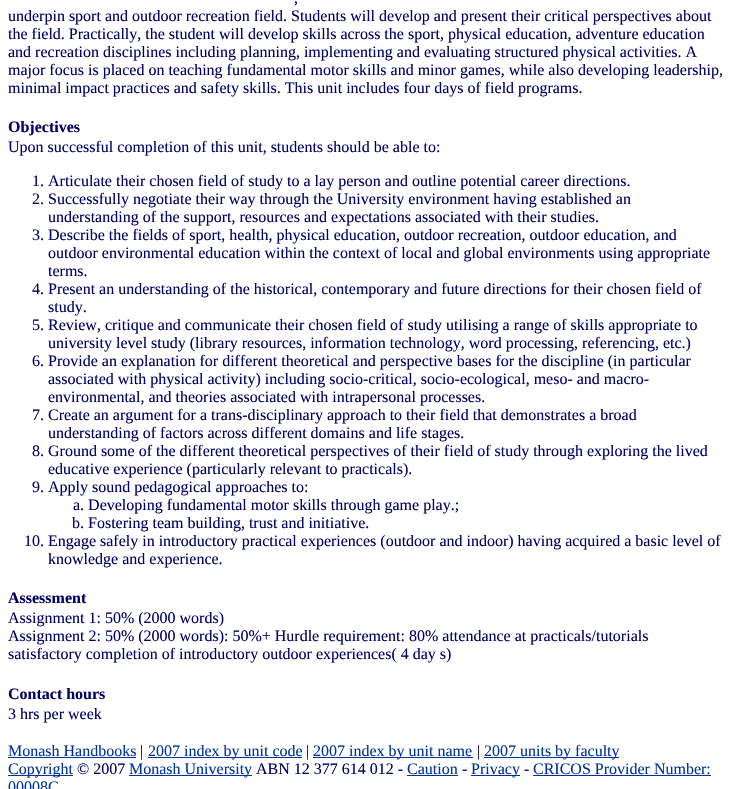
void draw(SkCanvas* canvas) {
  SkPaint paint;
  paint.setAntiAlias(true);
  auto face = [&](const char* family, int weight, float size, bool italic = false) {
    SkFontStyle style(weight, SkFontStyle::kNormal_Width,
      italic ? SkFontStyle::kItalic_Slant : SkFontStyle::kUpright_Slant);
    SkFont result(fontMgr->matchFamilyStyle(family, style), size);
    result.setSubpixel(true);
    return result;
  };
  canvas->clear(0xffffffff);
  {
    const struct { float x, y, w, h; SkColor color; } items[] = {
      {8, 757, 128, 1, 0xff003399},
      {148, 757, 154, 1, 0xff003399},
      {313, 757, 160, 1, 0xff003399},
      {484, 757, 135, 1, 0xff003399},
      {8, 775, 65, 1, 0xff003399},
      {129, 775, 123, 1, 0xff003399},
      {407, 775, 51, 1, 0xff003399},
      {471, 775, 49, 1, 0xff003399},
      {533, 775, 178, 1, 0xff003399},
    };
    for (auto [x, y, w, h, color] : items) {
      paint.setColor(color);
      canvas->drawRect(SkRect::MakeXYWH(x, y, w, h), paint);
    }
  }
  auto f0 = face("Liberation Serif", 400, 16);
  paint.setColor(0xff000066);
  {
    const struct { const char* s; float x, y; } items[] = {
      {",", 294, 3},
      {"underpin sport and outdoor recreation field. Students will develop and present their critical perspectives about", 8, 21},
      {"the field. Practically, the student will develop skills across the sport, physical education, adventure education", 8, 39},
      {"and recreation disciplines including planning, implementing and evaluating structured physical activities. A", 8, 57},
      {"major focus is placed on teaching fundamental motor skills and minor games, while also developing leadership,", 8, 75},
      {"minimal impact practices and safety skills. This unit includes four days of field programs.", 8, 93},
    };
    for (auto [s, x, y] : items) {
      canvas->drawString(s, x, y, f0, paint);
    }
  }
  auto f1 = face("Liberation Serif", 700, 16);
  canvas->drawString("Objectives", 8, 132, f1, paint);
  {
    const struct { const char* s; float x, y; } items[] = {
      {"Upon successful completion of this unit, students should be able to:", 8, 152},
      {"1. Articulate their chosen field of study to a lay person and outline potential career directions.", 32, 186},
      {"2. Successfully negotiate their way through the University environment having established an", 32, 204},
      {"understanding of the support, resources and expectations associated with their studies.", 48, 222},
      {"3. Describe the fields of sport, health, physical education, outdoor recreation, outdoor education, and", 32, 240},
      {"outdoor environmental education within the context of local and global environments using appropriate", 48, 258},
      {"terms.", 48, 276},
      {"4. Present an understanding of the historical, contemporary and future directions for their chosen field of", 32, 294},
      {"study.", 48, 312},
      {"5. Review, critique and communicate their chosen field of study utilising a range of skills appropriate to", 32, 330},
      {"university level study (library resources, information technology, word processing, referencing, etc.)", 48, 348},
      {"6. Provide an explanation for different theoretical and perspective bases for the discipline (in particular", 32, 366},
      {"associated with physical activity) including socio-critical, socio-ecological, meso- and macro-", 48, 384},
      {"environmental, and theories associated with intrapersonal processes.", 48, 402},
      {"7. Create an argument for a trans-disciplinary approach to their field that demonstrates a broad", 32, 420},
      {"understanding of factors across different domains and life stages.", 48, 438},
      {"8. Ground some of the different theoretical perspectives of their field of study through exploring the lived", 32, 456},
      {"educative experience (particularly relevant to practicals).", 48, 474},
      {"9. Apply sound pedagogical approaches to:", 32, 492},
      {"a. Developing fundamental motor skills through game play.;", 73, 510},
      {"b. Fostering team building, trust and initiative.", 72, 528},
      {"10. Engage safely in introductory practical experiences (outdoor and indoor) having acquired a basic level of", 24, 546},
      {"knowledge and experience.", 48, 564},
    };
    for (auto [s, x, y] : items) {
      canvas->drawString(s, x, y, f0, paint);
    }
  }
  canvas->drawString("Assessment", 8, 603, f1, paint);
  {
    const struct { const char* s; float x, y; } items[] = {
      {"Assignment 1: 50% (2000 words)", 8, 623},
      {"Assignment 2: 50% (2000 words): 50%+ Hurdle requirement: 80% attendance at practicals/tutorials", 8, 641},
      {"satisfactory completion of introductory outdoor experiences( 4 day s)", 8, 659},
    };
    for (auto [s, x, y] : items) {
      canvas->drawString(s, x, y, f0, paint);
    }
  }
  canvas->drawString("Contact hours", 8, 699, f1, paint);
  canvas->drawString("3 hrs per week", 8, 719, f0, paint);
  paint.setColor(0xff003399);
  canvas->drawString("Monash Handbooks", 8, 756, f0, paint);
  paint.setColor(0xff000066);
  canvas->drawString("|", 140, 756, f0, paint);
  paint.setColor(0xff003399);
  canvas->drawString("2007 index by unit code", 148, 756, f0, paint);
  paint.setColor(0xff000066);
  canvas->drawString("|", 306, 756, f0, paint);
  paint.setColor(0xff003399);
  canvas->drawString("2007 index by unit name", 313, 756, f0, paint);
  paint.setColor(0xff000066);
  canvas->drawString("|", 477, 756, f0, paint);
  paint.setColor(0xff003399);
  canvas->drawString("2007 units by faculty", 484, 756, f0, paint);
  canvas->drawString("Copyright", 8, 774, f0, paint);
  paint.setColor(0xff000066);
  canvas->drawString("© 2007", 77, 774, f0, paint);
  paint.setColor(0xff003399);
  canvas->drawString("Monash University", 129, 774, f0, paint);
  paint.setColor(0xff000066);
  canvas->drawString("ABN 12 377 614 012 -", 256, 774, f0, paint);
  paint.setColor(0xff003399);
  canvas->drawString("Caution", 407, 774, f0, paint);
  paint.setColor(0xff000066);
  canvas->drawString("-", 462, 774, f0, paint);
  paint.setColor(0xff003399);
  canvas->drawString("Privacy", 471, 774, f0, paint);
  paint.setColor(0xff000066);
  canvas->drawString("-", 524, 774, f0, paint);
  paint.setColor(0xff003399);
  canvas->drawString("CRICOS Provider Number:", 533, 774, f0, paint);
  canvas->drawString("00008C", 8, 792, f0, paint);
}
